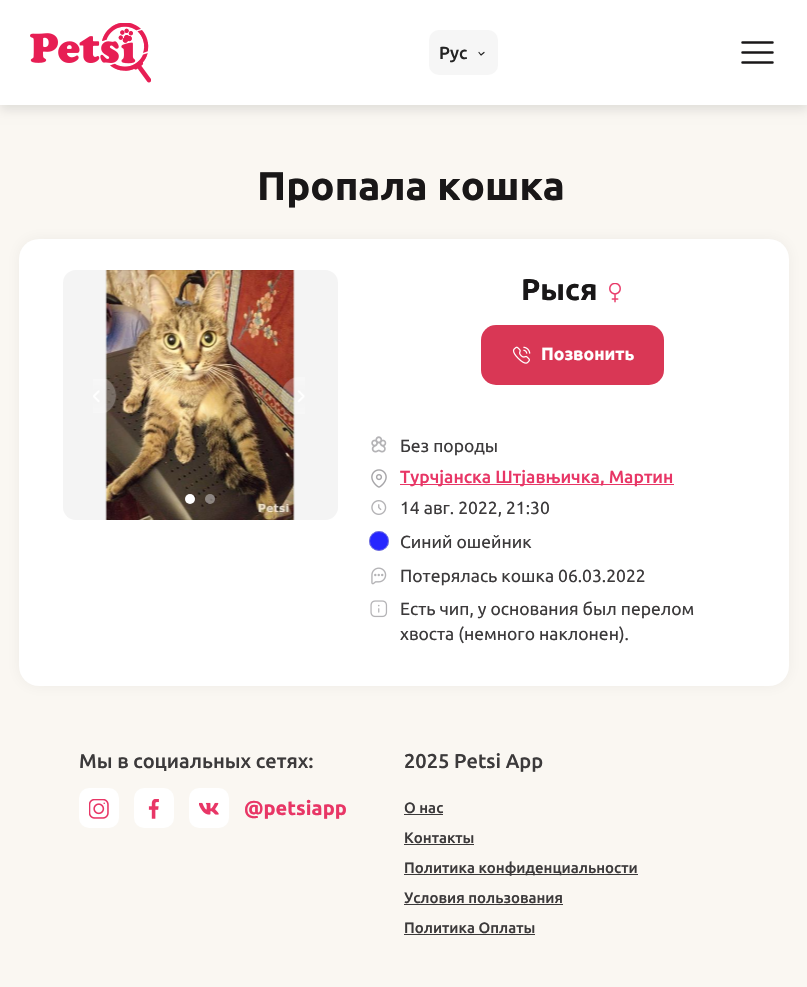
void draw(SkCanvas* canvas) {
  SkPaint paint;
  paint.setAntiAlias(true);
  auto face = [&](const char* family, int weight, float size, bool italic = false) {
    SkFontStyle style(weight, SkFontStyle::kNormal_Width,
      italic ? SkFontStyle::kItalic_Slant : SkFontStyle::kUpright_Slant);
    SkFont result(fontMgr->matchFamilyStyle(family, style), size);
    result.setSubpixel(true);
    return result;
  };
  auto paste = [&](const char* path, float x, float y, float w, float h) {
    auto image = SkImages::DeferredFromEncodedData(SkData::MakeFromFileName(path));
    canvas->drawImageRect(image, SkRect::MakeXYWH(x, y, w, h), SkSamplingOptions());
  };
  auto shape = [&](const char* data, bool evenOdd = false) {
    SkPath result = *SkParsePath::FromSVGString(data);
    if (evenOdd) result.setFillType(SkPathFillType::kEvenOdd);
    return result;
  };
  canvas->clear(0xfffaf7f2);
  paint.setColor(0x1a000000);
  paint.setMaskFilter(SkMaskFilter::MakeBlur(kNormal_SkBlurStyle, 5));
  canvas->drawRect(SkRect::MakeXYWH(0, 5, 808, 105), paint);
  paint.setMaskFilter(nullptr);
  paint.setColor(0xffffffff);
  canvas->drawRect(SkRect::MakeXYWH(0, 0, 807, 105), paint);
  paste("img/1.png", 30, 23, 121, 60);
  paint.setColor(0xfff6f6f6);
  canvas->drawRoundRect(SkRect::MakeXYWH(429, 30, 69, 45), 10, 10, paint);
  paint.setStroke(true);
  paint.setStrokeWidth(1.2f);
  paint.setStrokeCap(SkPaint::kRound_Cap);
  paint.setStrokeJoin(SkPaint::kRound_Join);
  paint.setColor(0xff242424);
  canvas->drawPath(shape("M479 52.5L481 55L484 52.5"), paint);
  paint.setStrokeWidth(2.5f);
  paint.setColor(0xff191718);
  canvas->drawPath(shape("M742.5 52.5H772.5M742.5 42.5H772.5M742.5 62.5H772.5"), paint);
  paint.setStroke(false);
  paint.setColor(0x0d161a22);
  paint.setMaskFilter(SkMaskFilter::MakeBlur(kNormal_SkBlurStyle, 7.5f));
  canvas->drawRoundRect(SkRect::MakeXYWH(19, 239, 770, 447), 20, 20, paint);
  paint.setMaskFilter(nullptr);
  paint.setColor(0xffffffff);
  canvas->drawRoundRect(SkRect::MakeXYWH(19, 239, 770, 447), 20, 20, paint);
  paint.setColor(0xfff4f4f4);
  canvas->drawRoundRect(SkRect::MakeXYWH(63, 270, 275, 250), 13, 13, paint);
  paste("img/2.png", 105, 270, 190, 250);
  paste("img/3.png", 93, 379, 24, 34);
  paste("img/4.png", 281, 377, 24, 37);
  paint.setColor(0xffffffff);
  canvas->drawCircle(190, 499, 5, paint);
  paint.setColor(0x66ffffff);
  canvas->drawCircle(210, 499, 5, paint);
  paste("img/5.png", 609, 283, 12, 20);
  paint.setColor(0xffd93755);
  canvas->drawRoundRect(SkRect::MakeXYWH(481, 325, 183, 60), 15, 15, paint);
  paste("img/6.png", 512, 346, 19, 18);
  paste("img/7.png", 371, 436, 16, 17);
  paste("img/8.png", 371, 469, 16, 19);
  paint.setColor(0xffe83666);
  canvas->drawRect(SkRect::MakeXYWH(400, 484, 274, 1), paint);
  paste("img/9.png", 371, 500, 16, 15);
  paint.setColor(0xff2626ff);
  canvas->drawCircle(379, 541, 10, paint);
  paint.setStroke(true);
  paint.setStrokeWidth(1);
  paint.setStrokeCap(SkPaint::kButt_Cap);
  paint.setStrokeJoin(SkPaint::kMiter_Join);
  paint.setColor(0x80b5b4b7);
  canvas->drawCircle(379, 541, 9.5f, paint);
  paste("img/10.png", 371, 567, 16, 18);
  paste("img/11.png", 370, 600, 18, 18);
  paint.setStroke(false);
  paint.setColor(0xffffffff);
  canvas->drawRoundRect(SkRect::MakeXYWH(79, 788, 40, 40), 10, 10, paint);
  paste("img/12.png", 89, 799, 20, 20);
  canvas->drawRoundRect(SkRect::MakeXYWH(134, 788, 40, 40), 10, 10, paint);
  paste("img/13.png", 148, 799, 11, 20);
  canvas->drawRoundRect(SkRect::MakeXYWH(189, 788, 40, 40), 10, 10, paint);
  paste("img/14.png", 199, 802, 20, 13);
  {
    const struct { float x, y, w, h; SkColor color; } items[] = {
      {404, 814, 39, 1, 0xff3b3939},
      {404, 844, 70, 1, 0xff3b3939},
      {404, 874, 234, 1, 0xff3b3939},
      {404, 904, 159, 1, 0xff3b3939},
      {404, 934, 131, 1, 0xff3b3939},
    };
    for (auto [x, y, w, h, color] : items) {
      paint.setColor(color);
      canvas->drawRect(SkRect::MakeXYWH(x, y, w, h), paint);
    }
  }
  auto f0 = face("Ubuntu", 500, 17.5f);
  paint.setColor(0xff242424);
  canvas->drawString("Рус", 439, 59, f0, paint);
  auto f1 = face("Ubuntu", 700, 40);
  paint.setColor(0xff191718);
  canvas->drawString("Пропала кошка", 257, 200, f1, paint);
  auto f2 = face("Ubuntu", 700, 30);
  canvas->drawString("Рыся", 521, 300, f2, paint);
  auto f3 = face("Ubuntu", 700, 17.5f);
  paint.setColor(0xffffffff);
  canvas->drawString("Позвонить", 541, 360, f3, paint);
  auto f4 = face("Ubuntu", 400, 17.5f);
  paint.setColor(0xff3c3a3b);
  canvas->drawString("Без породы", 400, 452, f4, paint);
  paint.setColor(0xffe83666);
  canvas->drawString("Турчјанска Штјавњичка, Мартин", 400, 483, f0, paint);
  paint.setColor(0xff3c3a3b);
  {
    const struct { const char* s; float x, y; } items[] = {
      {"14 авг. 2022, 21:30", 400, 514},
      {"Синий ошейник", 400, 548},
      {"Потерялась кошка 06.03.2022", 400, 582},
      {"Есть чип, у основания был перелом", 400, 615},
      {"хвоста (немного наклонен).", 400, 640},
    };
    for (auto [s, x, y] : items) {
      canvas->drawString(s, x, y, f4, paint);
    }
  }
  auto f5 = face("Ubuntu", 500, 20);
  canvas->drawString("Мы в социальных сетях:", 79, 768, f5, paint);
  auto f6 = face("Ubuntu", 700, 20);
  paint.setColor(0xffe83666);
  canvas->drawString("@petsiapp", 244, 815, f6, paint);
  paint.setColor(0xff3c3a3b);
  canvas->drawString("2025 Petsi App", 404, 768, f5, paint);
  auto f7 = face("Ubuntu", 500, 15);
  {
    const struct { const char* s; float x, y; } items[] = {
      {"О нас", 404, 813},
      {"Контакты", 404, 843},
      {"Политика конфиденциальности", 404, 873},
      {"Условия пользования", 404, 903},
      {"Политика Оплаты", 404, 933},
    };
    for (auto [s, x, y] : items) {
      canvas->drawString(s, x, y, f7, paint);
    }
  }
}
